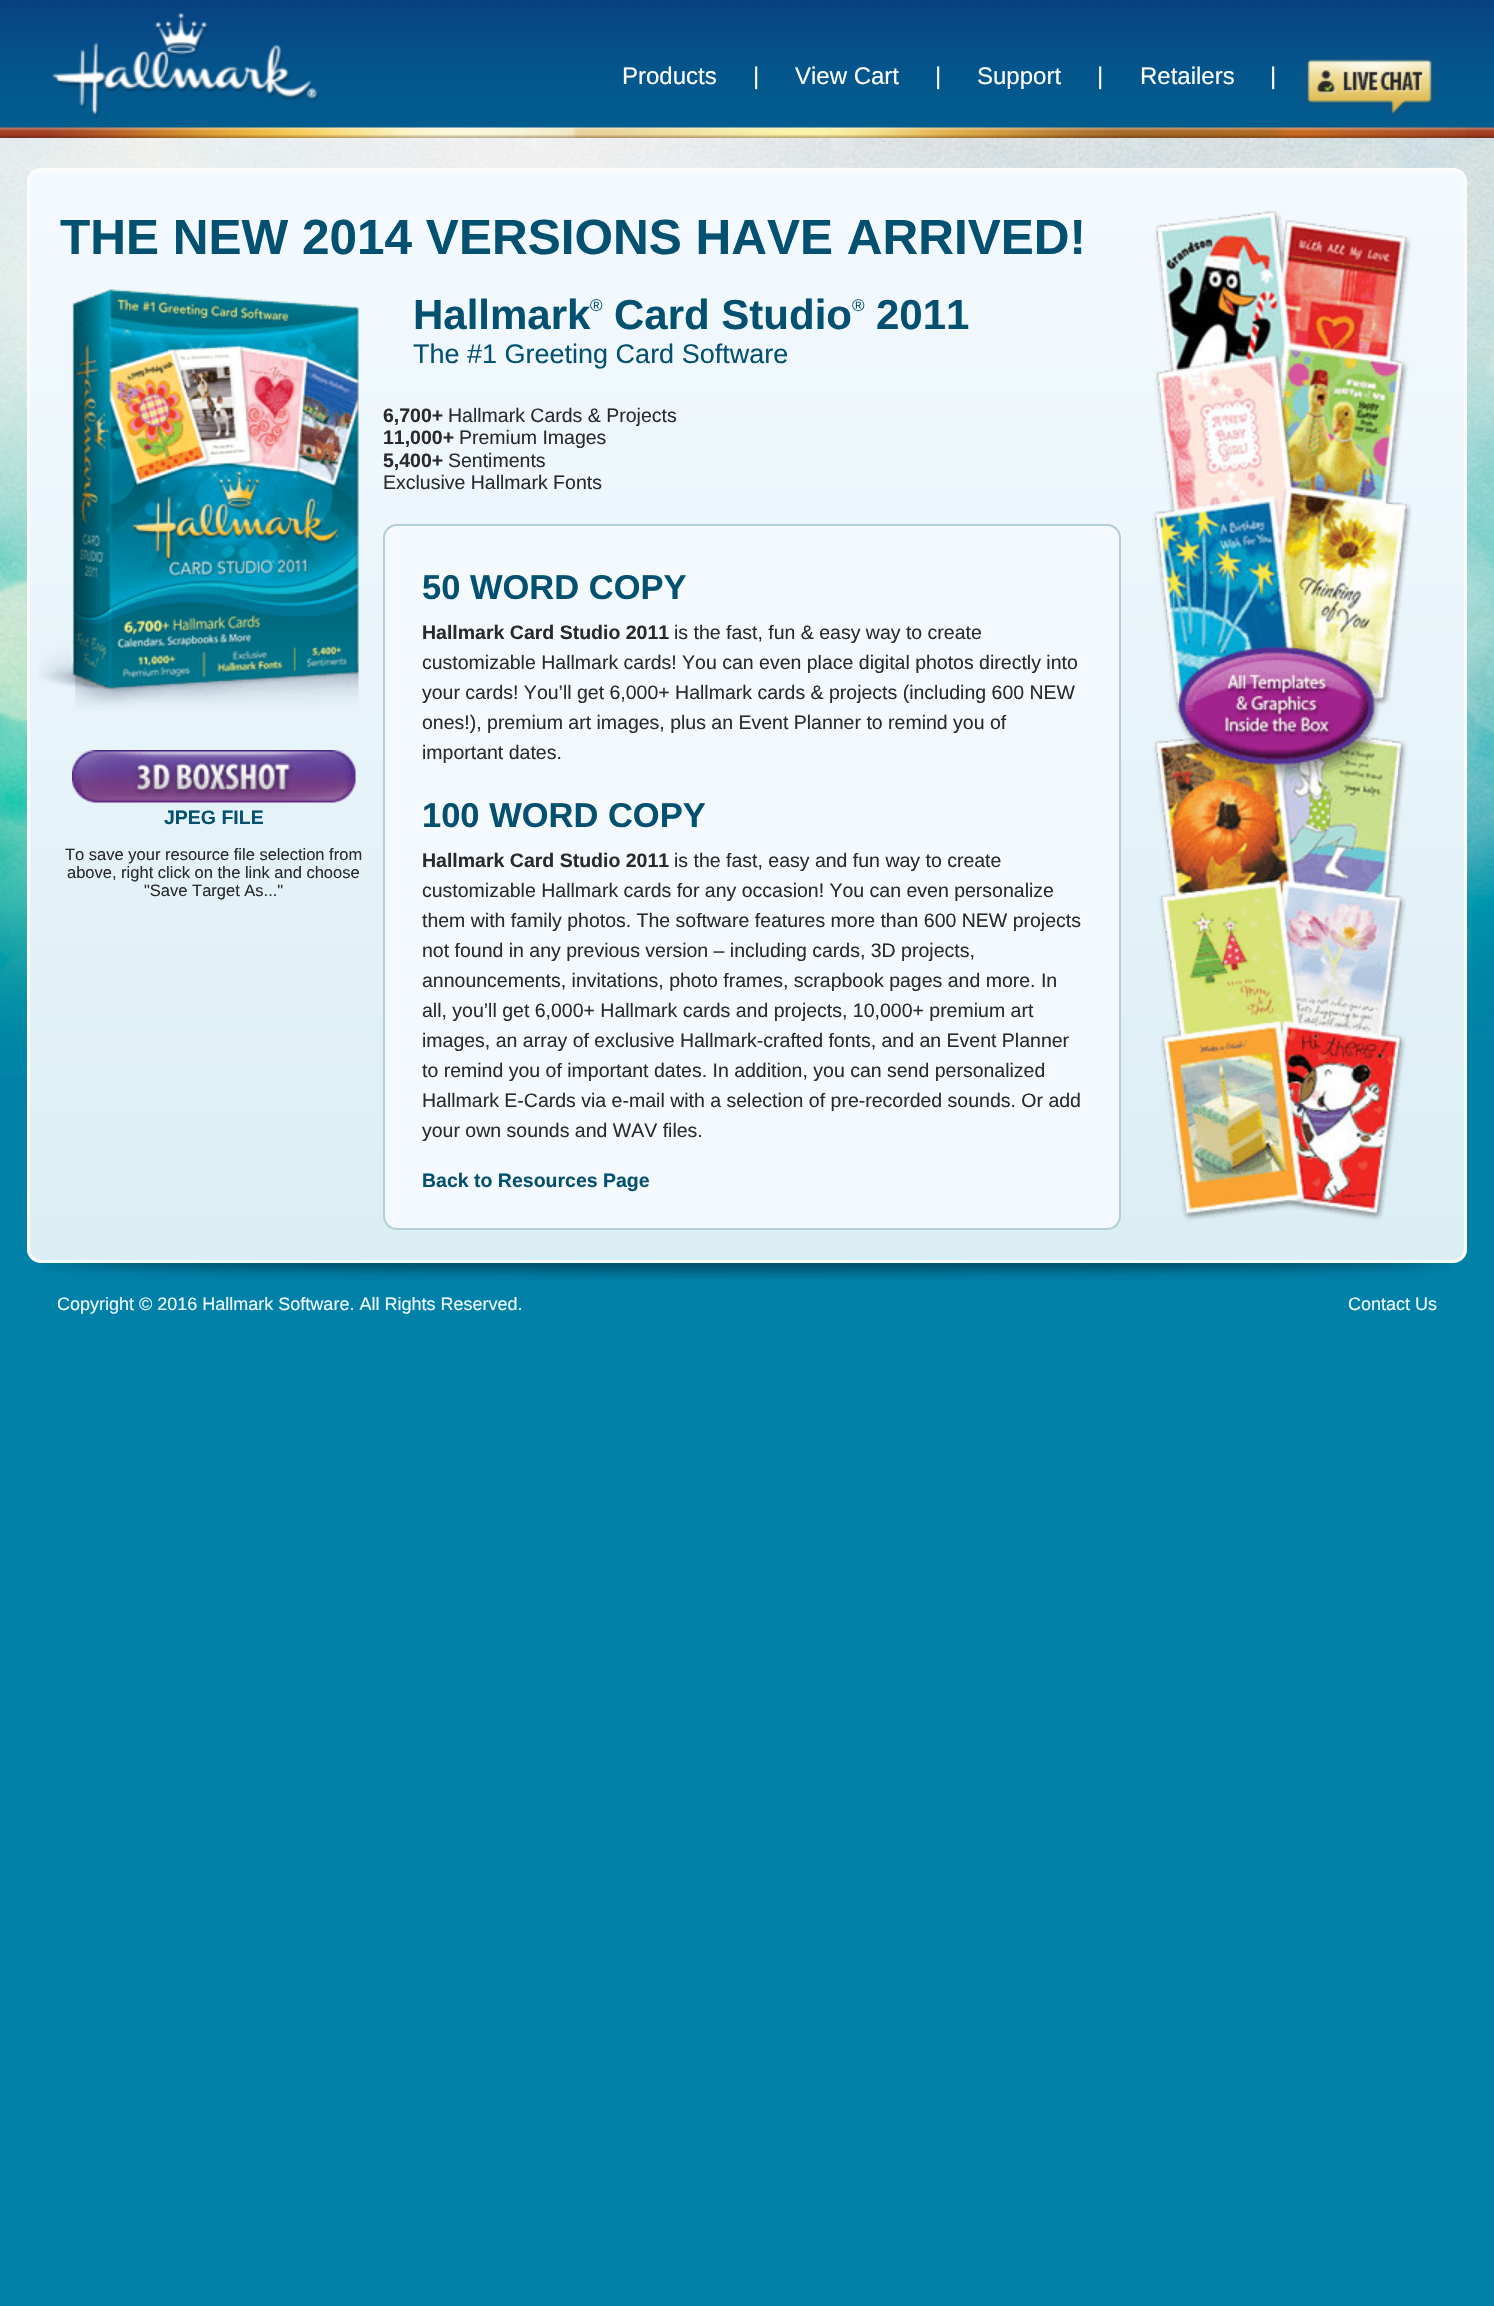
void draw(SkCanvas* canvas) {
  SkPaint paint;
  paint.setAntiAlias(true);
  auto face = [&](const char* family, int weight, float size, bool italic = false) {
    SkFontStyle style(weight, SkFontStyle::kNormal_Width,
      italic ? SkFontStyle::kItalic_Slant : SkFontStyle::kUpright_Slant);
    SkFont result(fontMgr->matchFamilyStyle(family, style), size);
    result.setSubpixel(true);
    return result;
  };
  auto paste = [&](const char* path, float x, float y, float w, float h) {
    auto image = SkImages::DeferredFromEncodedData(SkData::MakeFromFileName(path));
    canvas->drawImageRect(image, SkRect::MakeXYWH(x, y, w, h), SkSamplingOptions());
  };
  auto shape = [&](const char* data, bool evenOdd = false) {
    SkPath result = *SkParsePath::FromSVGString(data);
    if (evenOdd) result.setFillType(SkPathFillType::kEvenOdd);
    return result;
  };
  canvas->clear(0xff0180a8);
  paste("img/1.png", 0, 138, 1494, 937);
  paste("img/2.png", 0, 0, 1494, 138);
  paste("img/3.png", 52, 120, 1415, 18);
  paste("img/4.png", 52, 13, 267, 105);
  paste("img/5.png", 1302, 55, 135, 63);
  paste("img/6.png", 43, 1263, 1408, 17);
  canvas->save();
  canvas->clipPath(shape("M41 168H1453C1460.5 168 1467 174.5 1467 182V1249C1467 1256.5 1460.5 1263 1453 1263H41C33.5 1263 27 1256.5 27 1249V182C27 174.5 33.5 168 41 168Z"), true);
  {
    const SkColor colors[] = {0xfff4faff, 0xffdbeef4};
    const float stops[] = {0, 1};
    const SkPoint ends[] = {{747, 171}, {747, 1260}};
    paint.setShader(SkGradientShader::MakeLinear(ends, colors, stops, 2, SkTileMode::kClamp));
    paint.setAlpha(255);
  }
  canvas->drawRect(SkRect::MakeXYWH(27, 171, 1440, 1089), paint);
  canvas->restore();
  paint.setStroke(true);
  paint.setStrokeWidth(3);
  paint.setShader(nullptr);
  paint.setColor(0xfffdfdfe);
  canvas->drawRoundRect(SkRect::MakeXYWH(28.5f, 169.5f, 1437, 1092), 12.5f, 12.5f, paint);
  paste("img/7.png", 38, 289, 321, 422);
  paste("img/8.png", 72, 750, 284, 53);
  paint.setStroke(false);
  paint.setColor(0xfff3f9fc);
  canvas->drawRoundRect(SkRect::MakeXYWH(384, 525, 736, 704), 13, 13, paint);
  paint.setStroke(true);
  paint.setStrokeWidth(2);
  paint.setColor(0xffb4ced7);
  canvas->drawRoundRect(SkRect::MakeXYWH(384, 525, 736, 704), 13, 13, paint);
  paste("img/9.png", 1152, 210, 260, 1011);
  auto f0 = face("Liberation Sans", 400, 24);
  paint.setStroke(false);
  paint.setColor(0xffffffff);
  {
    const struct { const char* s; float x, y; } items[] = {
      {"Products", 622, 84},
      {"|", 753, 84},
      {"View Cart", 795, 84},
      {"|", 935, 84},
      {"Support", 977, 84},
      {"|", 1097, 84},
      {"Retailers", 1140, 84},
      {"|", 1270, 84},
    };
    for (auto [s, x, y] : items) {
      canvas->drawString(s, x, y, f0, paint);
    }
  }
  auto f1 = face("Liberation Sans", 700, 49.5f);
  paint.setColor(0xff045070);
  canvas->drawString("THE NEW 2014 VERSIONS HAVE ARRIVED!", 60, 254, f1, paint);
  auto f2 = face("Liberation Sans", 700, 19.5f);
  canvas->drawString("JPEG FILE", 164, 824, f2, paint);
  auto f3 = face("Liberation Sans", 400, 16.5f);
  paint.setColor(0xff2a2a2a);
  {
    const struct { const char* s; float x, y; } items[] = {
      {"To save your resource file selection from", 65, 860},
      {"above, right click on the link and choose", 67, 878},
      {"\"Save Target As...\"", 144, 896},
    };
    for (auto [s, x, y] : items) {
      canvas->drawString(s, x, y, f3, paint);
    }
  }
  auto f4 = face("Liberation Sans", 700, 42);
  paint.setColor(0xff045070);
  canvas->drawString("Hallmark", 413, 329, f4, paint);
  auto f5 = face("Liberation Sans", 400, 17);
  canvas->drawString("®", 590, 311, f5, paint);
  canvas->drawString("Card Studio", 614, 329, f4, paint);
  canvas->drawString("®", 852, 311, f5, paint);
  canvas->drawString("2011", 876, 329, f4, paint);
  auto f6 = face("Liberation Sans", 400, 27);
  canvas->drawString("The #1 Greeting Card Software", 413, 363, f6, paint);
  paint.setColor(0xff2a2a2a);
  canvas->drawString("6,700+", 383, 422, f2, paint);
  auto f7 = face("Liberation Sans", 400, 19.5f);
  canvas->drawString("Hallmark Cards & Projects", 448, 422, f7, paint);
  canvas->drawString("11,000+", 383, 444, f2, paint);
  canvas->drawString("Premium Images", 459, 444, f7, paint);
  canvas->drawString("5,400+", 383, 467, f2, paint);
  canvas->drawString("Sentiments", 448, 467, f7, paint);
  canvas->drawString("Exclusive Hallmark Fonts", 383, 489, f7, paint);
  auto f8 = face("Liberation Sans", 700, 34.5f);
  paint.setColor(0xff045070);
  canvas->drawString("50 WORD COPY", 422, 599, f8, paint);
  paint.setColor(0xff2a2a2a);
  canvas->drawString("Hallmark Card Studio 2011", 422, 639, f2, paint);
  {
    const struct { const char* s; float x, y; } items[] = {
      {"is the fast, fun & easy way to create", 674, 639},
      {"customizable Hallmark cards! You can even place digital photos directly into", 422, 669},
      {"your cards! You’ll get 6,000+ Hallmark cards & projects (including 600 NEW", 422, 699},
      {"ones!), premium art images, plus an Event Planner to remind you of", 422, 729},
      {"important dates.", 422, 759},
    };
    for (auto [s, x, y] : items) {
      canvas->drawString(s, x, y, f7, paint);
    }
  }
  paint.setColor(0xff045070);
  canvas->drawString("100 WORD COPY", 422, 827, f8, paint);
  paint.setColor(0xff2a2a2a);
  canvas->drawString("Hallmark Card Studio 2011", 422, 867, f2, paint);
  {
    const struct { const char* s; float x, y; } items[] = {
      {"is the fast, easy and fun way to create", 674, 867},
      {"customizable Hallmark cards for any occasion! You can even personalize", 422, 897},
      {"them with family photos. The software features more than 600 NEW projects", 422, 927},
      {"not found in any previous version – including cards, 3D projects,", 422, 957},
      {"announcements, invitations, photo frames, scrapbook pages and more. In", 422, 987},
      {"all, you’ll get 6,000+ Hallmark cards and projects, 10,000+ premium art", 422, 1017},
      {"images, an array of exclusive Hallmark-crafted fonts, and an Event Planner", 422, 1047},
      {"to remind you of important dates. In addition, you can send personalized", 422, 1077},
      {"Hallmark E-Cards via e-mail with a selection of pre-recorded sounds. Or add", 422, 1107},
      {"your own sounds and WAV files.", 422, 1137},
    };
    for (auto [s, x, y] : items) {
      canvas->drawString(s, x, y, f7, paint);
    }
  }
  paint.setColor(0xff045070);
  canvas->drawString("Back to Resources Page", 422, 1187, f2, paint);
  auto f9 = face("Liberation Sans", 400, 18);
  paint.setColor(0xffeefafe);
  canvas->drawString("Copyright © 2016 Hallmark Software. All Rights Reserved.", 57, 1310, f9, paint);
  canvas->drawString("Contact Us", 1348, 1310, f9, paint);
}
